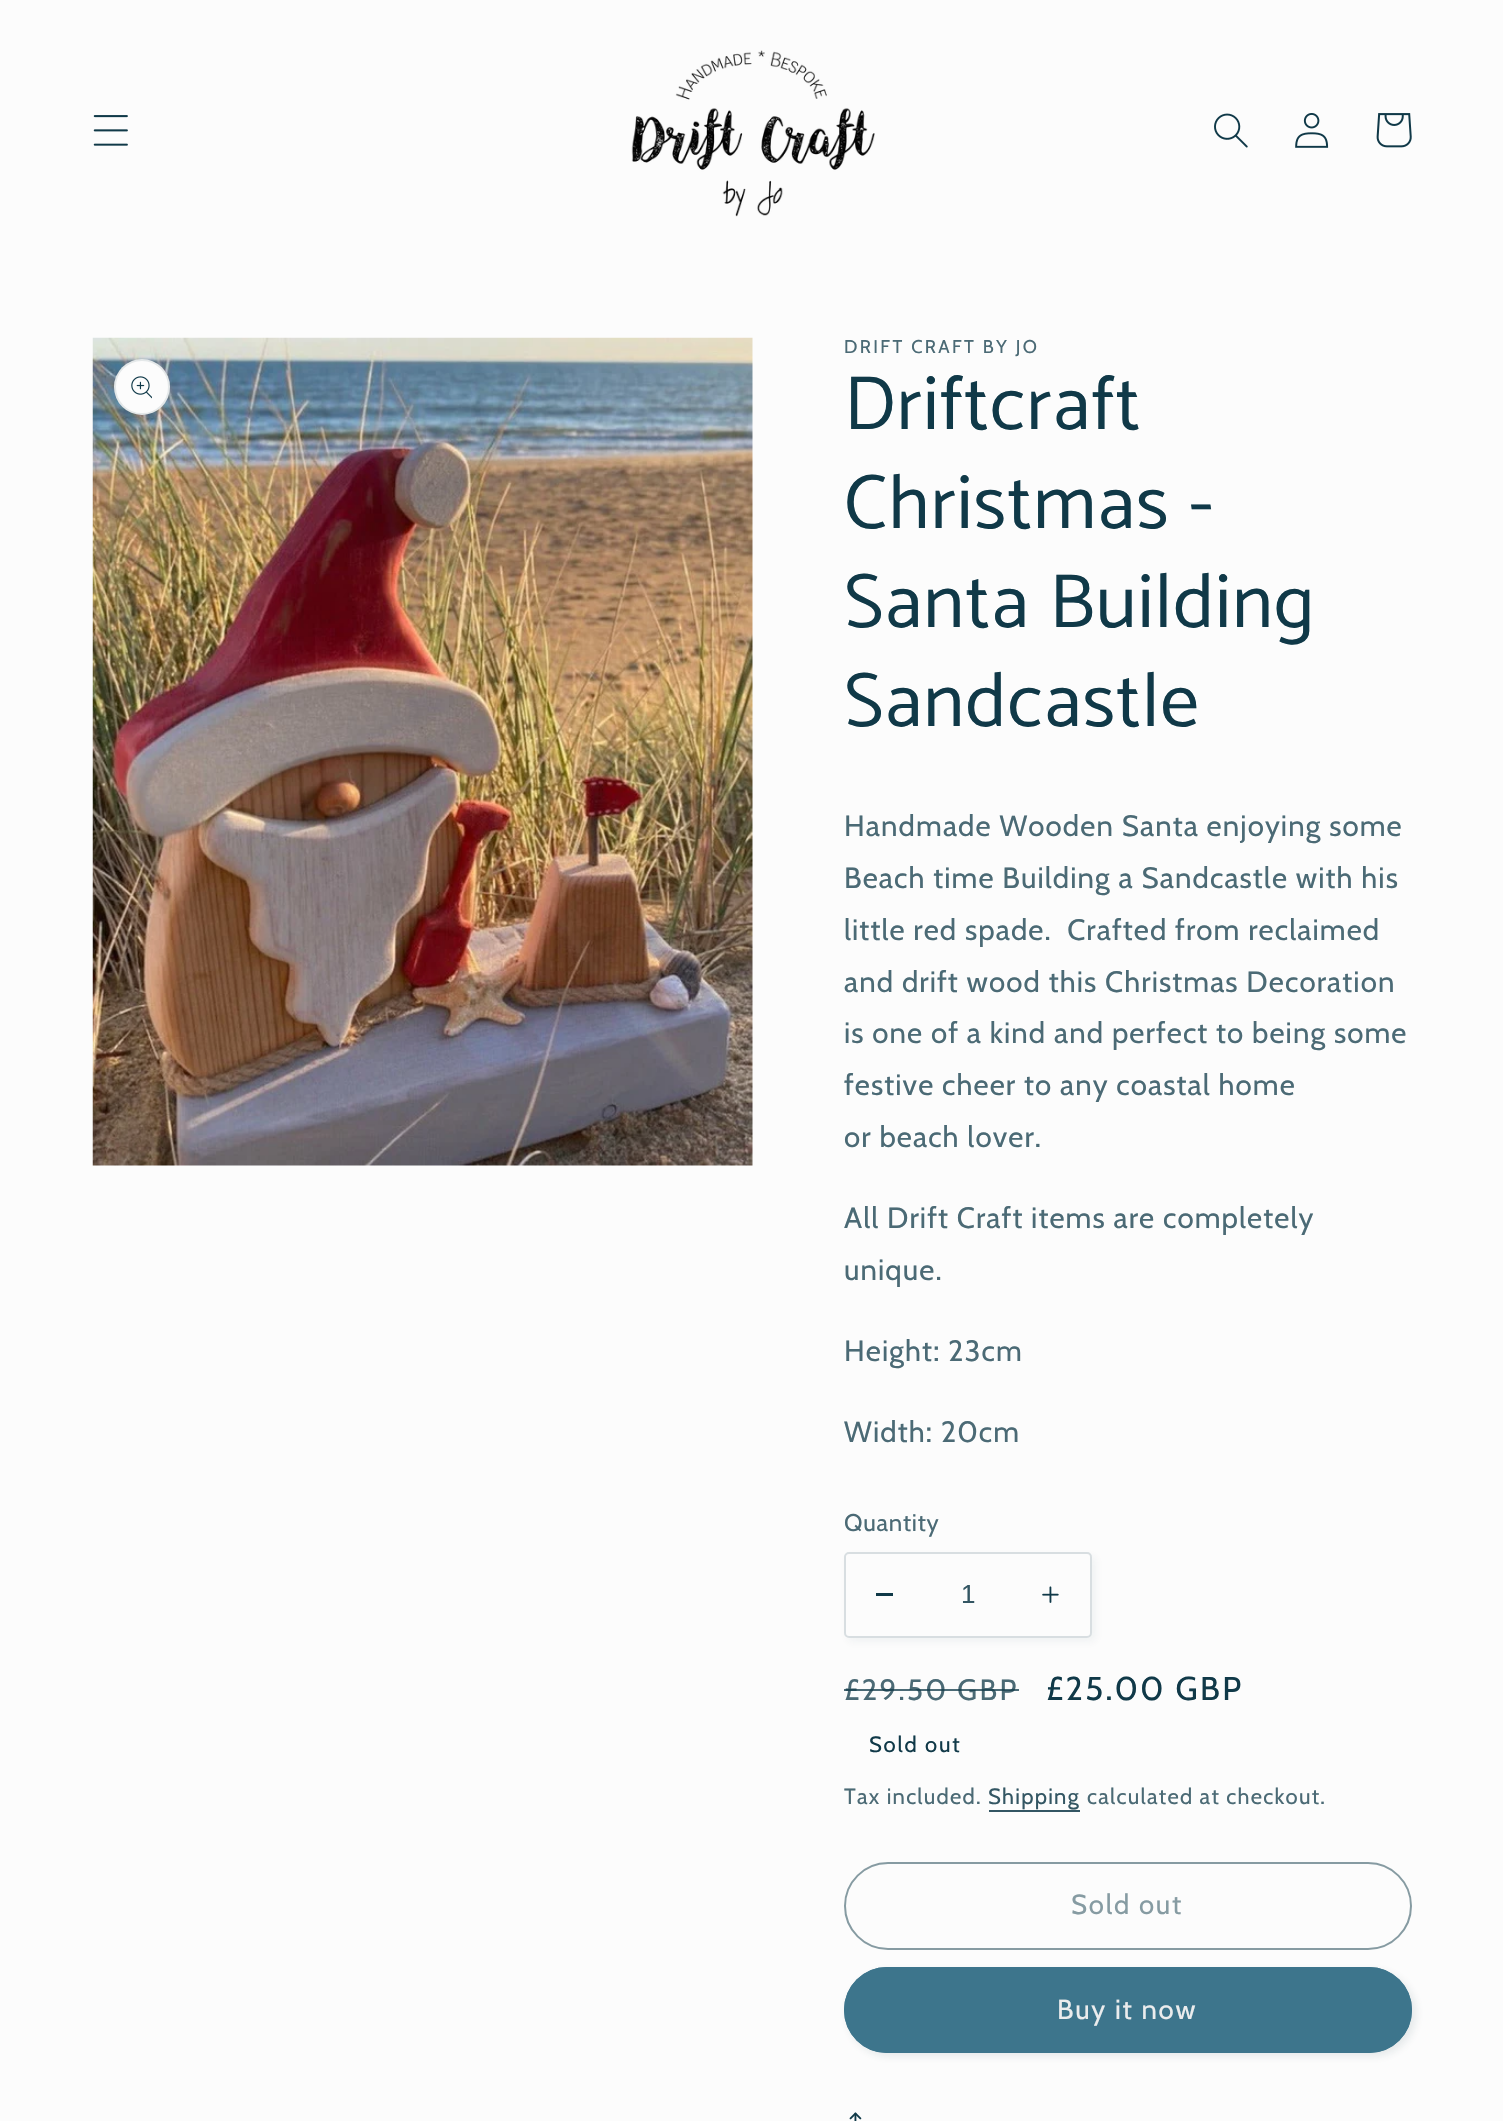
void draw(SkCanvas* canvas) {
  SkPaint paint;
  paint.setAntiAlias(true);
  auto face = [&](const char* family, int weight, float size, bool italic = false) {
    SkFontStyle style(weight, SkFontStyle::kNormal_Width,
      italic ? SkFontStyle::kItalic_Slant : SkFontStyle::kUpright_Slant);
    SkFont result(fontMgr->matchFamilyStyle(family, style), size);
    result.setSubpixel(true);
    return result;
  };
  auto writeSpaced = [&](const char* s, float x, float y, const SkFont& font, const SkPaint& ink, float letter, float word) {
    std::vector<SkGlyphID> glyphs(font.countText(s, strlen(s), SkTextEncoding::kUTF8));
    std::vector<float> xs(glyphs.size());
    font.textToGlyphs(s, strlen(s), SkTextEncoding::kUTF8, glyphs);
    font.getXPos(glyphs, xs, x);
    float extra = 0;
    for (size_t i = 0; i < glyphs.size(); i++) {
      xs[i] += extra;
      extra += letter + word * (glyphs[i] == font.unicharToGlyph(' '));
    }
    canvas->drawTextBlob(SkTextBlob::MakeFromPosHGlyphs(glyphs, xs, y, font), 0, 0, ink);
  };
  auto paste = [&](const char* path, float x, float y, float w, float h) {
    auto image = SkImages::DeferredFromEncodedData(SkData::MakeFromFileName(path));
    canvas->drawImageRect(image, SkRect::MakeXYWH(x, y, w, h), SkSamplingOptions());
  };
  canvas->clear(0xfffcfcfc);
  paste("img/1.png", 93, 115, 35, 31);
  paste("img/2.png", 631, 50, 244, 167);
  paste("img/3.png", 1214, 113, 34, 35);
  paste("img/4.png", 1295, 113, 34, 35);
  paste("img/5.png", 1376, 113, 36, 35);
  paste("img/6.png", 92, 337, 661, 829);
  paint.setColor(0xfffcfcfc);
  canvas->drawCircle(142, 387, 28, paint);
  paint.setStroke(true);
  paint.setStrokeWidth(2);
  paint.setColor(0x1a103948);
  canvas->drawCircle(142, 387, 27, paint);
  paste("img/7.png", 131, 376, 21, 23);
  paint.setStroke(false);
  paint.setColor(0x0d103948);
  paint.setMaskFilter(SkMaskFilter::MakeBlur(kNormal_SkBlurStyle, 4.5f));
  canvas->drawRoundRect(SkRect::MakeXYWH(847, 1556, 249, 86), 5, 5, paint);
  paint.setMaskFilter(nullptr);
  paint.setColor(0xfffcfcfc);
  canvas->drawRoundRect(SkRect::MakeXYWH(844, 1552, 248, 86), 5, 5, paint);
  paint.setColor(0xff103948);
  canvas->drawRect(SkRect::MakeXYWH(876, 1593, 17, 3), paint);
  paste("img/8.png", 1042, 1586, 17, 17);
  paint.setStroke(true);
  paint.setColor(0x26103948);
  canvas->drawRoundRect(SkRect::MakeXYWH(845, 1553, 246, 84), 4, 4, paint);
  paint.setStroke(false);
  paint.setColor(0xff335663);
  canvas->drawRect(SkRect::MakeXYWH(989, 1810, 91, 2), paint);
  paint.setStroke(true);
  paint.setColor(0xff869ba2);
  canvas->drawRoundRect(SkRect::MakeXYWH(845, 1863, 566, 86), 43, 43, paint);
  paint.setStroke(false);
  paint.setColor(0x1a103948);
  paint.setMaskFilter(SkMaskFilter::MakeBlur(kNormal_SkBlurStyle, 4.5f));
  canvas->drawRoundRect(SkRect::MakeXYWH(847, 1971, 569, 85), 42.5f, 42.5f, paint);
  paint.setMaskFilter(nullptr);
  paint.setColor(0xff3d758c);
  canvas->drawRoundRect(SkRect::MakeXYWH(844, 1967, 568, 86), 43, 43, paint);
  paint.setStroke(true);
  canvas->drawRoundRect(SkRect::MakeXYWH(845, 1968, 566, 84), 42, 42, paint);
  paste("img/9.png", 849, 2112, 13, 9);
  auto f0 = face("Cabin", 400, 18.4f);
  paint.setStroke(false);
  paint.setColor(0xff4b6a75);
  writeSpaced("DRIFT CRAFT BY JO", 844, 353, f0, paint, 2.4f, 0);
  auto f1 = face("Catamaran", 400, 77);
  paint.setColor(0xff103948);
  {
    const struct { const char* s; float x, y; } items[] = {
      {"Driftcraft", 844, 429},
      {"Christmas -", 844, 528},
      {"Santa Building", 844, 627},
      {"Sandcastle", 844, 726},
    };
    for (auto [s, x, y] : items) {
      writeSpaced(s, x, y, f1, paint, 1.2f, 0);
    }
  }
  auto f2 = face("Cabin", 400, 29.4f);
  paint.setColor(0xff4b6a75);
  {
    const struct { const char* s; float x, y; } items[] = {
      {"Handmade Wooden Santa enjoying some", 844, 836},
      {"Beach time Building a Sandcastle with his", 844, 888},
      {"little red spade.  Crafted from reclaimed", 844, 940},
      {"and drift wood this Christmas Decoration", 844, 992},
      {"is one of a kind and perfect to being some", 844, 1043},
      {"festive cheer to any coastal home", 844, 1095},
      {"or beach lover.", 844, 1147},
      {"All Drift Craft items are completely", 844, 1228},
      {"unique.", 844, 1280},
      {"Height: 23cm", 844, 1361},
      {"Width: 20cm", 844, 1442},
    };
    for (auto [s, x, y] : items) {
      writeSpaced(s, x, y, f2, paint, 1.1f, 0);
    }
  }
  auto f3 = face("Cabin", 400, 24);
  writeSpaced("Quantity", 844, 1531, f3, paint, 0.75f, 0);
  auto f4 = face("Liberation Sans", 400, 26);
  paint.setColor(0xff335663);
  canvas->drawString("1", 961, 1603, f4, paint);
  paint.setColor(0xff4b6a75);
  writeSpaced("£29.50 GBP", 844, 1700, f2, paint, 2.4f, 0);
  paint.setColor(0xbf103948);
  canvas->drawRect(SkRect::MakeXYWH(844, 1689, 175, 2), paint);
  auto f5 = face("Cabin", 400, 33);
  paint.setColor(0xff103948);
  writeSpaced("£25.00 GBP", 1046, 1700, f5, paint, 2.4f, 0);
  auto f6 = face("Cabin", 400, 22);
  writeSpaced("Sold out", 869, 1752, f6, paint, 1.75f, 0);
  paint.setColor(0xff4b6a75);
  writeSpaced("Tax included.", 844, 1804, f6, paint, 1.25f, 0);
  paint.setColor(0xff335663);
  writeSpaced("Shipping", 988, 1804, f6, paint, 1.25f, 0);
  paint.setColor(0xff4b6a75);
  writeSpaced("calculated at checkout.", 1087, 1804, f6, paint, 1.25f, 0);
  auto f7 = face("Cabin", 400, 27.5f);
  paint.setColor(0xff869ba2);
  writeSpaced("Sold out", 1071, 1914, f7, paint, 1.75f, 0);
  paint.setColor(0xffebeced);
  writeSpaced("Buy it now", 1057, 2019, f7, paint, 1.75f, 0);
}
